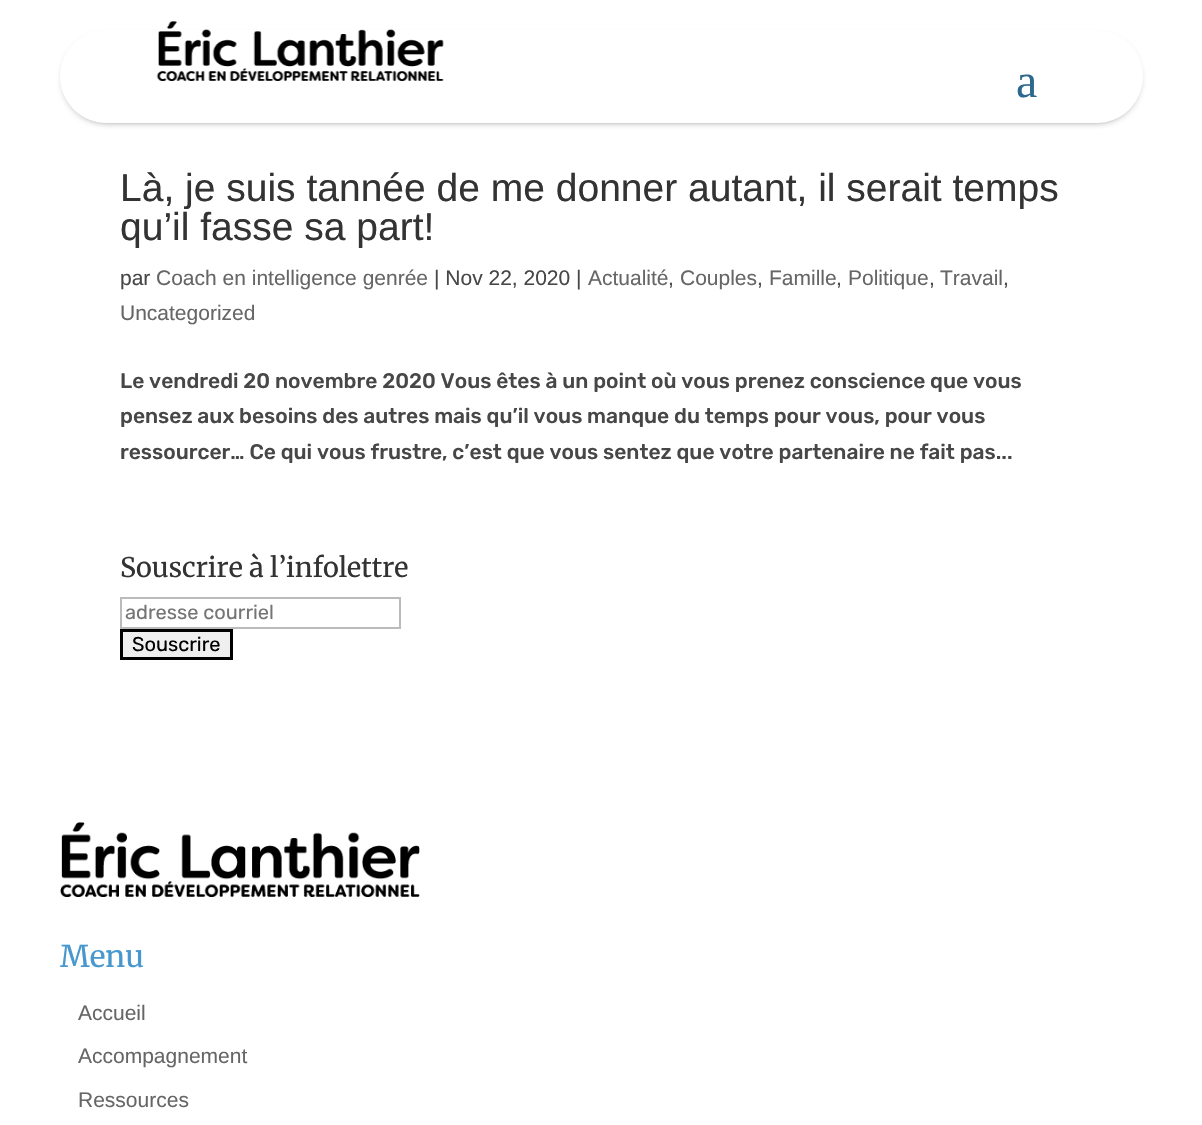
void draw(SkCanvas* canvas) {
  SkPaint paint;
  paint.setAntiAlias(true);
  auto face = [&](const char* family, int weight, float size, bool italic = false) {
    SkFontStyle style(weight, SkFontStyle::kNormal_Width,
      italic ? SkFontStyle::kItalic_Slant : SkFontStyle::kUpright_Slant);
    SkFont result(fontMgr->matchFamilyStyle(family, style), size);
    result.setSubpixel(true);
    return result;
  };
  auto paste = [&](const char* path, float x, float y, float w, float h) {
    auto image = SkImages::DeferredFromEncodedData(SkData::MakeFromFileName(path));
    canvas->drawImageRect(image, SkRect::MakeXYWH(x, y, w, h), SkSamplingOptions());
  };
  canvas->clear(0xffffffff);
  paint.setColor(0xcc000000);
  paint.setMaskFilter(SkMaskFilter::MakeBlur(kNormal_SkBlurStyle, 4));
  canvas->drawRoundRect(SkRect::MakeXYWH(66, 39, 1071, 81), 40.5f, 40.5f, paint);
  paint.setMaskFilter(nullptr);
  paint.setColor(0xffffffff);
  canvas->drawRoundRect(SkRect::MakeXYWH(60, 30, 1083, 93), 46.5f, 46.5f, paint);
  paste("img/1.png", 156, 21, 288, 60);
  paint.setStroke(true);
  paint.setStrokeWidth(2);
  paint.setColor(0xffbbbbbb);
  canvas->drawRect(SkRect::MakeXYWH(121, 598, 279, 30), paint);
  paint.setStroke(false);
  paint.setColor(0xffefefef);
  canvas->drawRect(SkRect::MakeXYWH(121.5f, 630.5f, 110, 28), paint);
  paint.setStroke(true);
  paint.setStrokeWidth(3);
  paint.setColor(0xff000000);
  canvas->drawRect(SkRect::MakeXYWH(121.5f, 630.5f, 110, 28), paint);
  paste("img/2.png", 60, 822, 360, 75);
  auto f0 = face("Liberation Serif", 400, 48);
  paint.setStroke(false);
  paint.setColor(0xff2f688f);
  canvas->drawString("a", 1016, 97, f0, paint);
  auto f1 = face("Liberation Sans", 400, 39);
  paint.setColor(0xff333333);
  canvas->drawString("Là, je suis tannée de me donner autant, il serait temps", 120, 201, f1, paint);
  canvas->drawString("qu’il fasse sa part!", 120, 240, f1, paint);
  auto f2 = face("Liberation Sans", 400, 21);
  paint.setColor(0xff474747);
  canvas->drawString("par", 120, 285, f2, paint);
  paint.setColor(0xff666666);
  canvas->drawString("Coach en intelligence genrée", 156, 285, f2, paint);
  paint.setColor(0xff474747);
  canvas->drawString("| Nov 22, 2020 |", 434, 285, f2, paint);
  paint.setColor(0xff666666);
  canvas->drawString("Actualité", 588, 285, f2, paint);
  paint.setColor(0xff474747);
  canvas->drawString(",", 668, 285, f2, paint);
  paint.setColor(0xff666666);
  canvas->drawString("Couples", 680, 285, f2, paint);
  paint.setColor(0xff474747);
  canvas->drawString(",", 757, 285, f2, paint);
  paint.setColor(0xff666666);
  canvas->drawString("Famille", 769, 285, f2, paint);
  paint.setColor(0xff474747);
  canvas->drawString(",", 836, 285, f2, paint);
  paint.setColor(0xff666666);
  canvas->drawString("Politique", 848, 285, f2, paint);
  paint.setColor(0xff474747);
  canvas->drawString(",", 929, 285, f2, paint);
  paint.setColor(0xff666666);
  canvas->drawString("Travail", 940, 285, f2, paint);
  paint.setColor(0xff474747);
  canvas->drawString(",", 1003, 285, f2, paint);
  paint.setColor(0xff666666);
  canvas->drawString("Uncategorized", 120, 320, f2, paint);
  auto f3 = face("Rubik", 500, 21);
  paint.setColor(0xff474747);
  {
    const struct { const char* s; float x, y; } items[] = {
      {"Le vendredi 20 novembre 2020 Vous êtes à un point où vous prenez conscience que vous", 120, 388},
      {"pensez aux besoins des autres mais qu’il vous manque du temps pour vous, pour vous", 120, 423},
      {"ressourcer… Ce qui vous frustre, c’est que vous sentez que votre partenaire ne fait pas...", 120, 459},
    };
    for (auto [s, x, y] : items) {
      canvas->drawString(s, x, y, f3, paint);
    }
  }
  auto f4 = face("Merriweather", 400, 27);
  paint.setColor(0xff333333);
  canvas->drawString("Souscrire à l’infolettre", 120, 577, f4, paint);
  auto f5 = face("Rubik", 400, 20);
  paint.setColor(0xff757575);
  canvas->drawString("adresse courriel", 125, 619, f5, paint);
  paint.setColor(0xff000000);
  canvas->drawString("Souscrire", 132, 651, f5, paint);
  auto f6 = face("Merriweather", 400, 30);
  paint.setColor(0xff4798ce);
  canvas->drawString("Menu", 60, 967, f6, paint);
  paint.setColor(0xff666666);
  {
    const struct { const char* s; float x, y; } items[] = {
      {"Accueil", 78, 1020},
      {"Accompagnement", 78, 1063},
      {"Ressources", 78, 1107},
    };
    for (auto [s, x, y] : items) {
      canvas->drawString(s, x, y, f2, paint);
    }
  }
}
